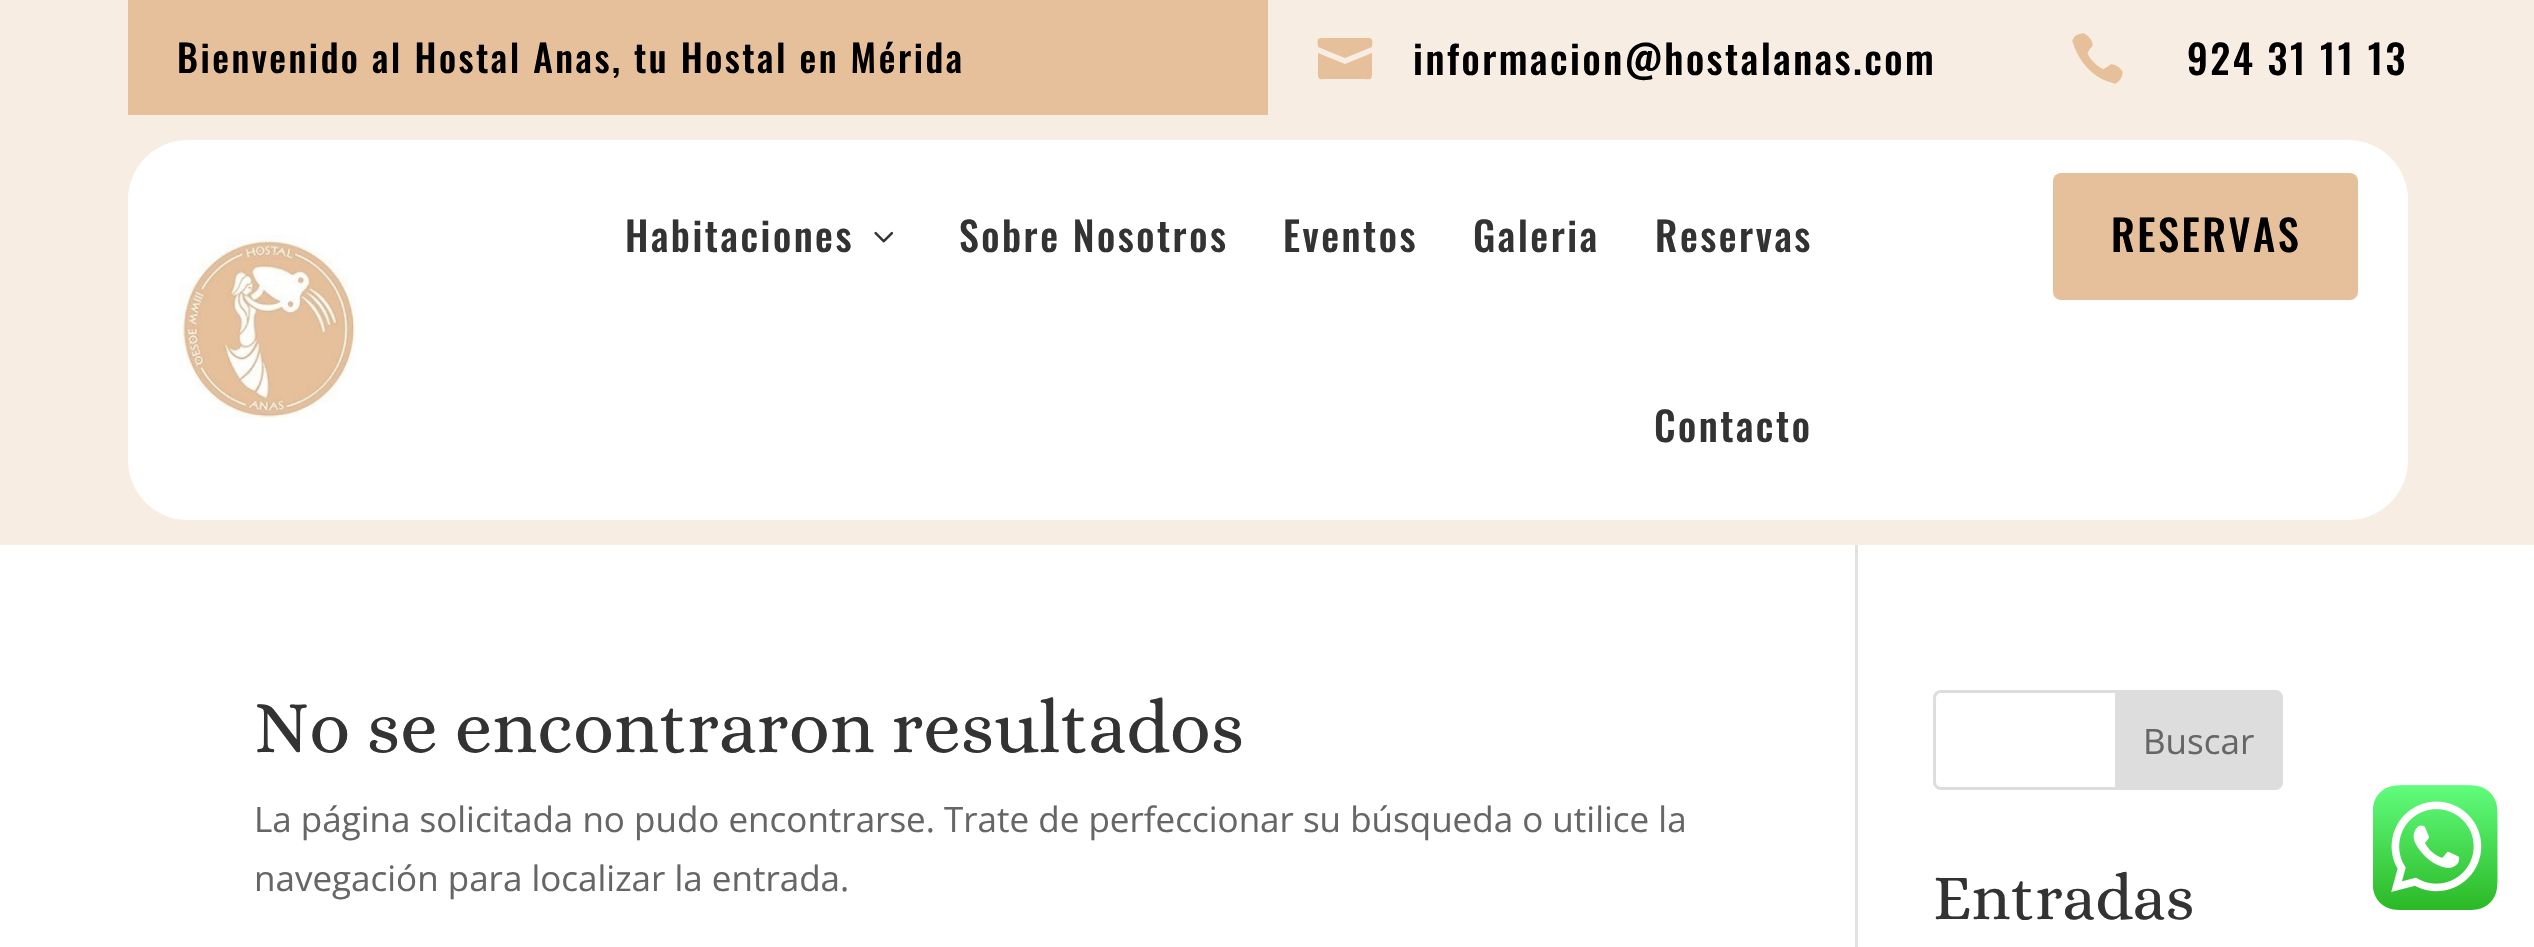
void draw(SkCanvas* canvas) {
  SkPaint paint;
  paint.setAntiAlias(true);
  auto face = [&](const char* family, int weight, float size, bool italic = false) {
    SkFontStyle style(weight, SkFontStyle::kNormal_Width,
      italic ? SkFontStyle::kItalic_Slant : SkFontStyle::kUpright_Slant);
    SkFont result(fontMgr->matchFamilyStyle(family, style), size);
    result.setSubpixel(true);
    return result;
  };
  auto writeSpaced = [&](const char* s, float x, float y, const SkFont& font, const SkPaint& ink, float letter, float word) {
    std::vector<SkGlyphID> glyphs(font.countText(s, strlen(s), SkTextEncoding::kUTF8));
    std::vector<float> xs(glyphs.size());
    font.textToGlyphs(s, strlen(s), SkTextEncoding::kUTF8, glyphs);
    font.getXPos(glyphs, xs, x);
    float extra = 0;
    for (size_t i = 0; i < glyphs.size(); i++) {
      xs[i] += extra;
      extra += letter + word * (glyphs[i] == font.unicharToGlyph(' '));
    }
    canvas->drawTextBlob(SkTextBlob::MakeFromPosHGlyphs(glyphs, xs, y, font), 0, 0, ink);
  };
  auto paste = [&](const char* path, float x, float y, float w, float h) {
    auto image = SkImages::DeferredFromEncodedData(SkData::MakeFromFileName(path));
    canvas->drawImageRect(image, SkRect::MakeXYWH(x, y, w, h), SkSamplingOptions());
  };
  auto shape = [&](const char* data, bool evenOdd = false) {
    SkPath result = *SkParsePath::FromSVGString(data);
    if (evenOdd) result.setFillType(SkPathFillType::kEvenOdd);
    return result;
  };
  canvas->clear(0xffffffff);
  paint.setColor(0xfff8ede3);
  canvas->drawRect(SkRect::MakeXYWH(0, 0, 2534, 545), paint);
  paint.setColor(0xffe6c09b);
  canvas->drawRect(SkRect::MakeXYWH(128, 0, 1140, 115), paint);
  canvas->drawPath(shape("M1369 38H1321C1316 38 1318 44 1318 47L1345 58L1372 47C1372 44 1374 38 1369 38ZM1318 53V72C1318 81 1319 79 1329 79H1361C1371 79 1372 81 1372 72V53L1345 64Z"), paint);
  paste("img/1.png", 2072, 33, 51, 51);
  paint.setColor(0xffffffff);
  canvas->drawRoundRect(SkRect::MakeXYWH(128, 140, 2280, 380), 60, 60, paint);
  paste("img/2.png", 178, 235, 178, 184);
  paste("img/3.png", 874, 231, 20, 12);
  paint.setColor(0xffe6c09b);
  canvas->drawRoundRect(SkRect::MakeXYWH(2053, 173, 305, 127), 8, 8, paint);
  paint.setColor(0xffe2e2e2);
  canvas->drawRect(SkRect::MakeXYWH(1855, 545, 3, 402), paint);
  paint.setStroke(true);
  paint.setStrokeWidth(3);
  paint.setColor(0xffdddddd);
  canvas->drawRoundRect(SkRect::MakeXYWH(1934.5f, 691.5f, 347, 97), 6.5f, 6.5f, paint);
  paint.setStroke(false);
  canvas->drawPath(shape("M2116.5 691.5H2275C2278.5 691.5 2281.5 694.5 2281.5 698V782C2281.5 785.5 2278.5 788.5 2275 788.5H2116.5Z"), paint);
  paint.setStroke(true);
  canvas->drawPath(shape("M2116.5 691.5H2275C2278.5 691.5 2281.5 694.5 2281.5 698V782C2281.5 785.5 2278.5 788.5 2275 788.5H2116.5Z"), paint);
  paste("img/4.png", 2373, 785, 125, 125);
  auto f0 = face("Oswald", 500, 37.5f);
  paint.setStroke(false);
  paint.setColor(0xff000000);
  writeSpaced("Bienvenido al Hostal Anas, tu Hostal en Mérida", 177, 73, f0, paint, 2.5f, 0);
  auto f1 = face("Oswald", 500, 40);
  writeSpaced("informacion@hostalanas.com", 1413, 75, f1, paint, 2.5f, 0);
  writeSpaced("924 31 11 13", 2187, 75, f1, paint, 2.5f, 0);
  paint.setColor(0xff333333);
  {
    const struct { const char* s; float x, y; } items[] = {
      {"Habitaciones", 625, 252},
      {"Sobre Nosotros", 959, 252},
      {"Eventos", 1283, 252},
      {"Galeria", 1473, 252},
      {"Reservas", 1655, 252},
      {"Contacto", 1654, 442},
    };
    for (auto [s, x, y] : items) {
      writeSpaced(s, x, y, f1, paint, 2.5f, 0);
    }
  }
  auto f2 = face("Oswald", 500, 42.5f);
  paint.setColor(0xff000000);
  writeSpaced("RESERVAS", 2111, 252, f2, paint, 2.5f, 0);
  auto f3 = face("Alice", 400, 75);
  paint.setColor(0xff333333);
  canvas->drawString("No se encontraron resultados", 254, 752, f3, paint);
  auto f4 = face("Open Sans", 400, 35);
  paint.setColor(0xff666666);
  {
    const struct { const char* s; float x, y; } items[] = {
      {"La página solicitada no pudo encontrarse. Trate de perfeccionar su búsqueda o utilice la", 254, 832},
      {"navegación para localizar la entrada.", 254, 891},
      {"Buscar", 2143, 754},
    };
    for (auto [s, x, y] : items) {
      canvas->drawString(s, x, y, f4, paint);
    }
  }
  auto f5 = face("Alice", 400, 65);
  paint.setColor(0xff333333);
  canvas->drawString("Entradas", 1933, 919, f5, paint);
}
